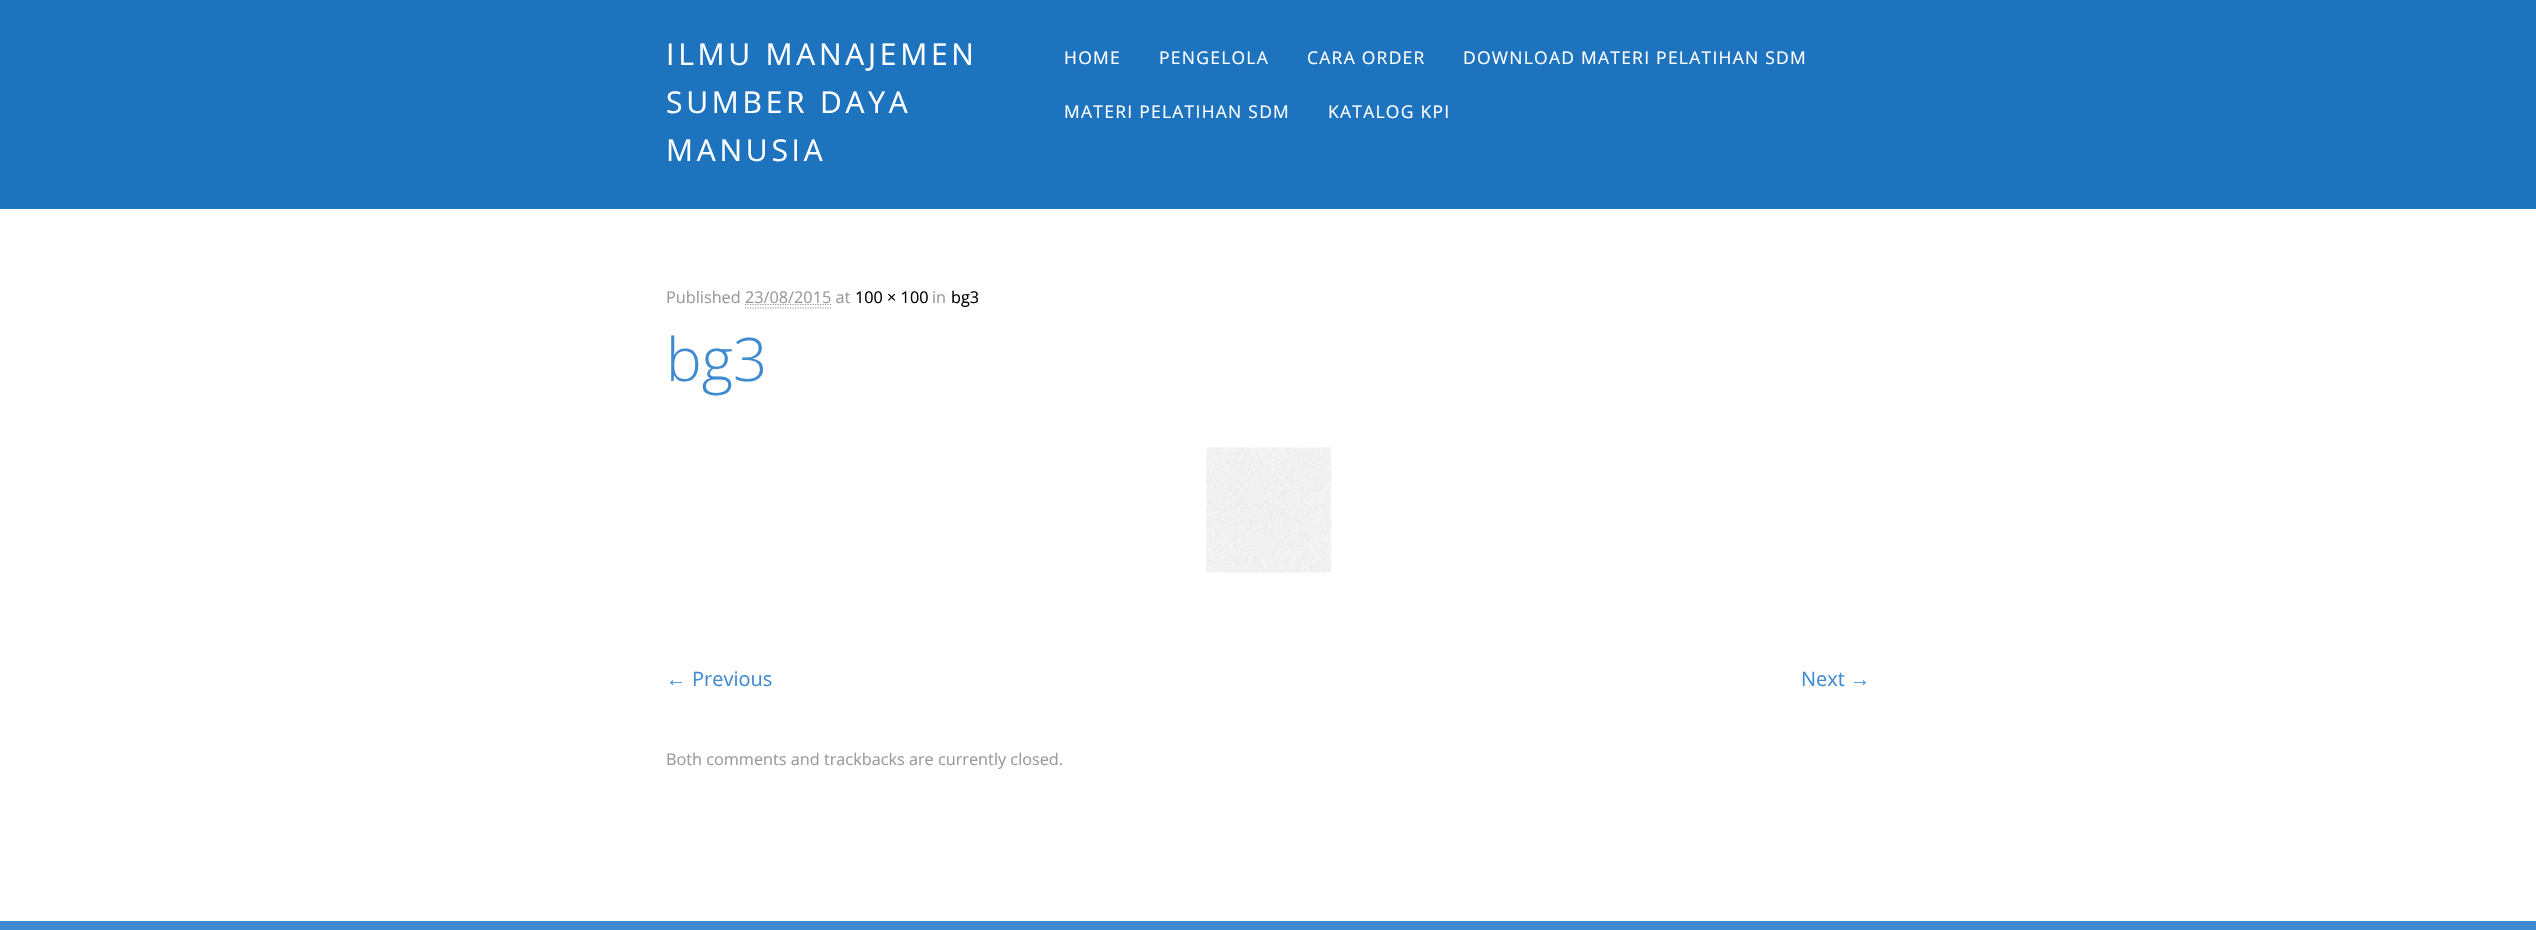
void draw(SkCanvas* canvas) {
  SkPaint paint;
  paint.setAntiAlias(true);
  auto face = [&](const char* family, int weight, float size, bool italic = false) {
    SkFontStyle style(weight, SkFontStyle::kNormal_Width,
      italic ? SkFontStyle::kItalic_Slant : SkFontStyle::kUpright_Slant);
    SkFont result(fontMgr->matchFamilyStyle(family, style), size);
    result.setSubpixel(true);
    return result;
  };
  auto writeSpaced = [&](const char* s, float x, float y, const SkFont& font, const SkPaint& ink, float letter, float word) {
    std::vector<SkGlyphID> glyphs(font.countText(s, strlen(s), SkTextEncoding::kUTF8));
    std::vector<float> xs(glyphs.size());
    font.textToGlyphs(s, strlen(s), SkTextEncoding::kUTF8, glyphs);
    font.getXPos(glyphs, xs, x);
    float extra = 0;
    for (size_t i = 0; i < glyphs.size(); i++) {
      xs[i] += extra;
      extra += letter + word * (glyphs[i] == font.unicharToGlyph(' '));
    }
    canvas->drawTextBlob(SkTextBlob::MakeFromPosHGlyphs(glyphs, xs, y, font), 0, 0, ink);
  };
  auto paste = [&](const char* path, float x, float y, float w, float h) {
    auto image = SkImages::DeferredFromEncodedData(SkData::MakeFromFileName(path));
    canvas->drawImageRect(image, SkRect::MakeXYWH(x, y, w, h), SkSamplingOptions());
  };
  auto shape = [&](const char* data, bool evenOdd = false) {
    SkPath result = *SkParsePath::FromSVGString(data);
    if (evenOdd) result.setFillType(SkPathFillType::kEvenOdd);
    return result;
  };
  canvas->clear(0xffffffff);
  paint.setColor(0xff1e73be);
  canvas->drawRect(SkRect::MakeXYWH(0, 0, 2536, 209), paint);
  paint.setStroke(true);
  paint.setStrokeWidth(1.2f);
  paint.setColor(0xff999999);
  paint.setPathEffect(SkDashPathEffect::Make({{1.25f, 1.25f}}, 0));
  canvas->drawPath(shape("M745 308H831"), paint);
  paint.setPathEffect(nullptr);
  paint.setPathEffect(SkDashPathEffect::Make({{1.25f, 1.25f}}, 0));
  canvas->drawPath(shape("M745 304.5H831.5"), paint);
  paint.setPathEffect(nullptr);
  paste("img/1.png", 1206, 447, 126, 126);
  paint.setStroke(false);
  paint.setColor(0xff408ad2);
  canvas->drawRect(SkRect::MakeXYWH(0, 921, 2536, 9), paint);
  auto f0 = face("Open Sans", 400, 30);
  paint.setColor(0xffffffff);
  {
    const struct { const char* s; float x, y; } items[] = {
      {"ILMU MANAJEMEN", 666, 65},
      {"SUMBER DAYA", 666, 113},
      {"MANUSIA", 666, 161},
    };
    for (auto [s, x, y] : items) {
      writeSpaced(s, x, y, f0, paint, 3.75f, 0);
    }
  }
  auto f1 = face("Open Sans", 400, 17.5f);
  {
    const struct { const char* s; float x, y; } items[] = {
      {"HOME", 1064, 64},
      {"PENGELOLA", 1159, 64},
      {"CARA ORDER", 1307, 64},
      {"DOWNLOAD MATERI PELATIHAN SDM", 1463, 64},
      {"MATERI PELATIHAN SDM", 1064, 118},
      {"KATALOG KPI", 1328, 118},
    };
    for (auto [s, x, y] : items) {
      writeSpaced(s, x, y, f1, paint, 1.25f, 0);
    }
  }
  auto f2 = face("Open Sans", 400, 16.25f);
  paint.setColor(0xff999999);
  canvas->drawString("Published", 666, 303, f2, paint);
  canvas->drawString("23/08/2015 at", 745, 303, f2, paint);
  paint.setColor(0xff000000);
  canvas->drawString("100 × 100", 855, 303, f2, paint);
  paint.setColor(0xff999999);
  canvas->drawString("in", 932, 303, f2, paint);
  paint.setColor(0xff000000);
  canvas->drawString("bg3", 951, 303, f2, paint);
  auto f3 = face("Open Sans", 300, 60);
  paint.setColor(0xff408ad2);
  canvas->drawString("bg3", 666, 381, f3, paint);
  auto f4 = face("Liberation Sans", 400, 20);
  canvas->drawString("←", 666, 686, f4, paint);
  auto f5 = face("Open Sans", 400, 20);
  canvas->drawString("Previous", 692, 686, f5, paint);
  canvas->drawString("Next", 1801, 686, f5, paint);
  canvas->drawString("→", 1850, 686, f4, paint);
  paint.setColor(0xff999999);
  canvas->drawString("Both comments and trackbacks are currently closed.", 666, 765, f2, paint);
}
